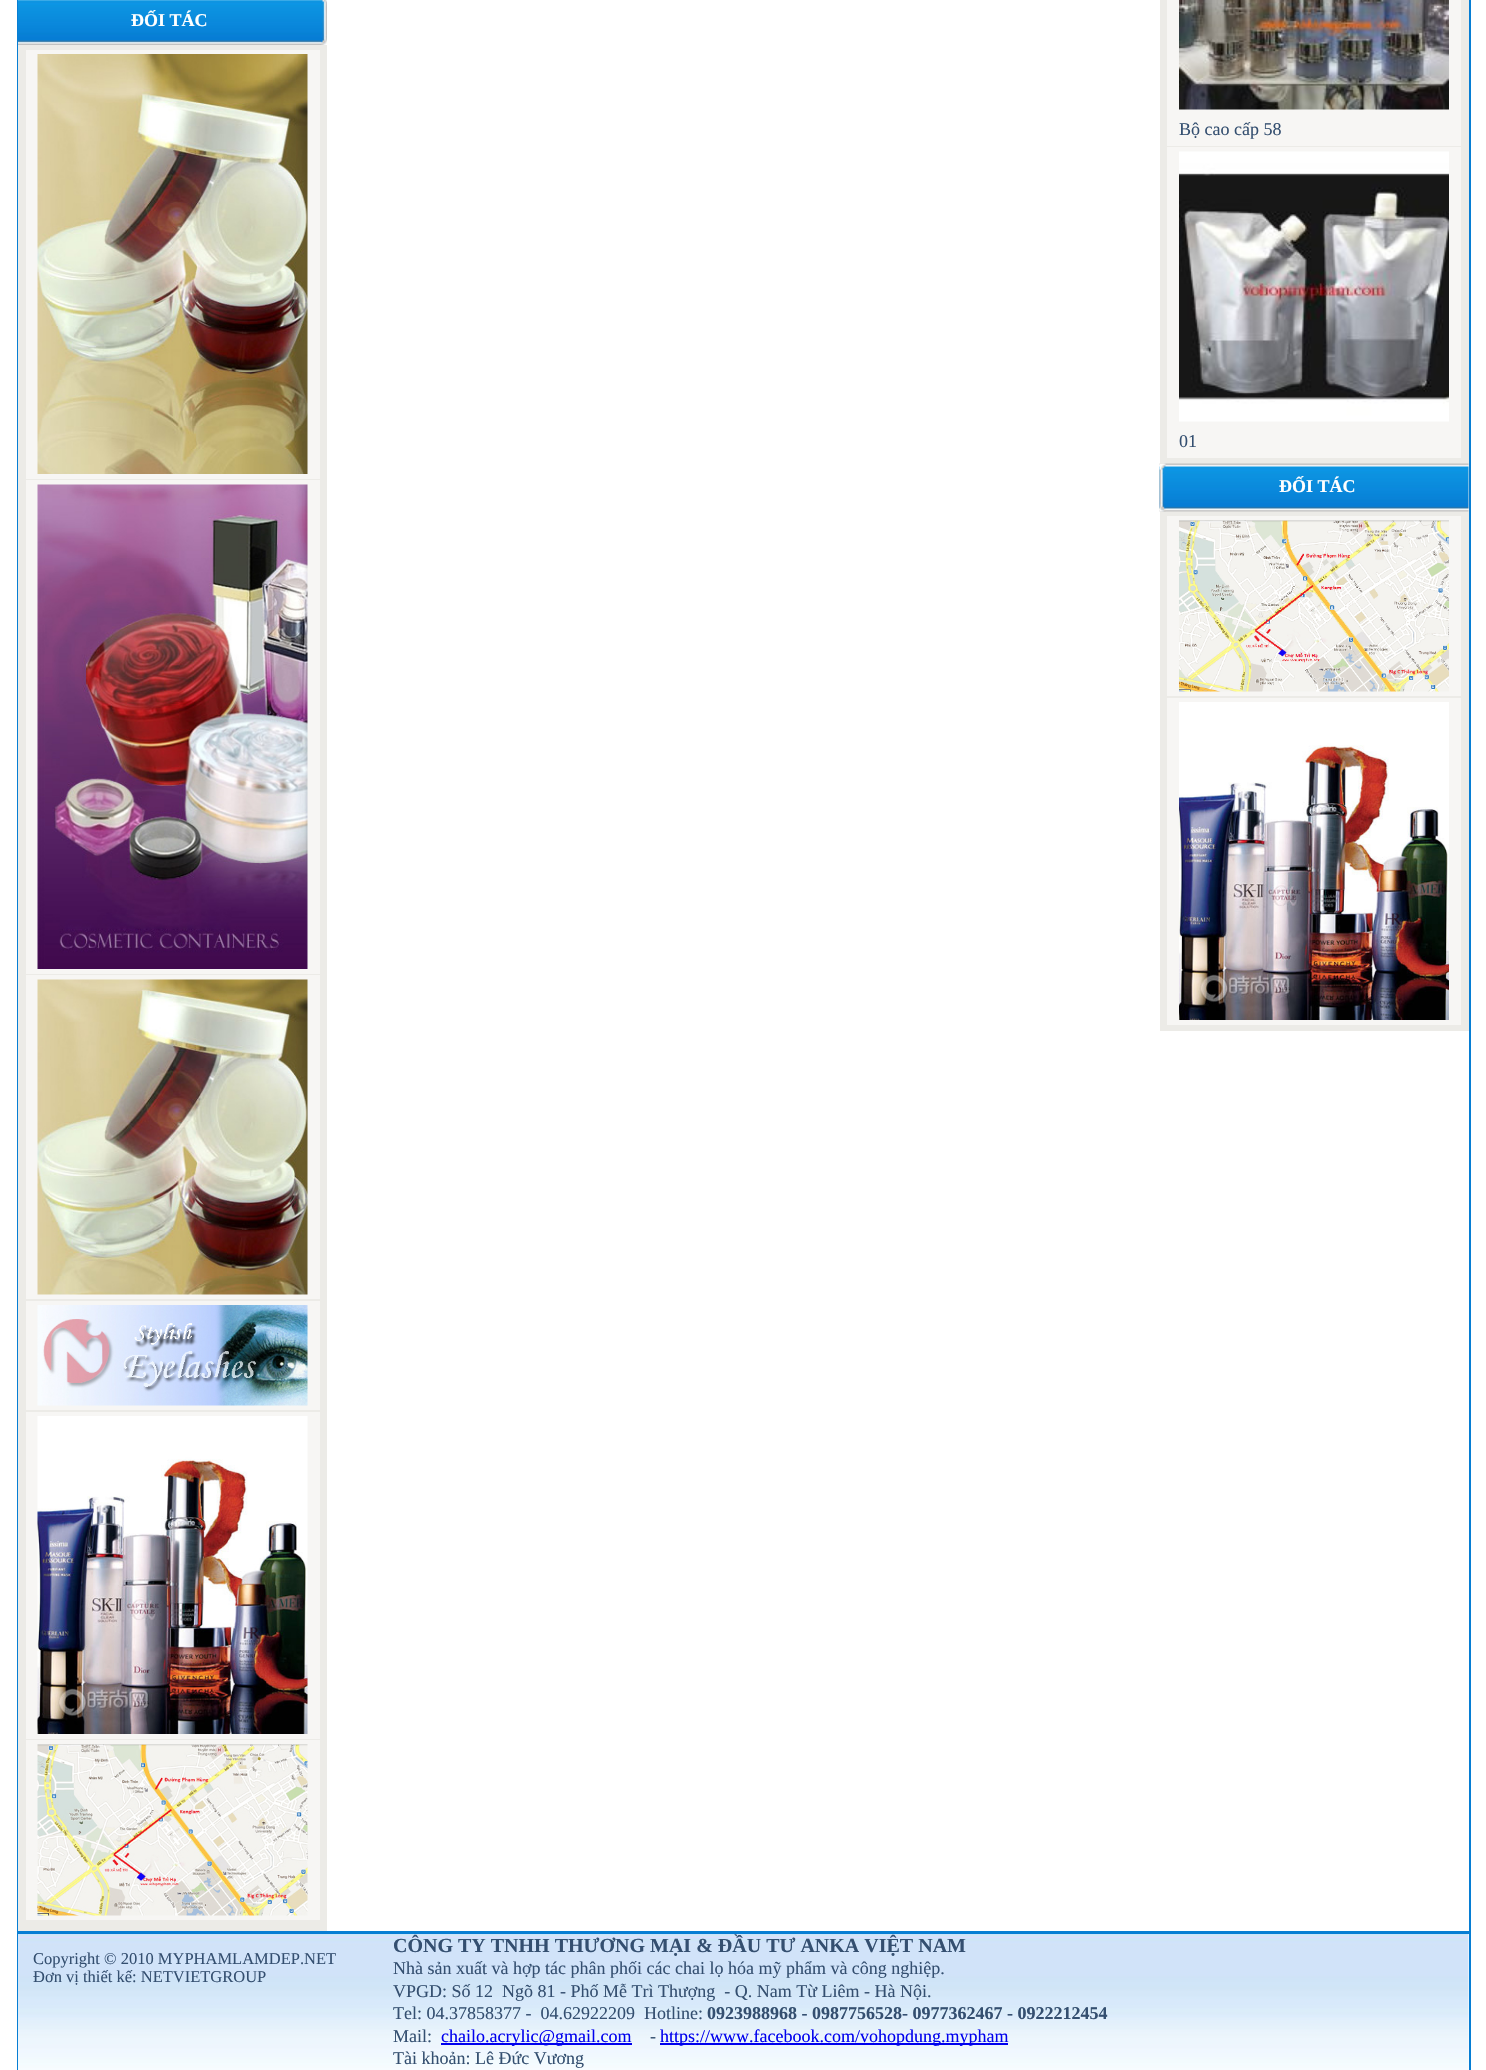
void draw(SkCanvas* canvas) {
  SkPaint paint;
  paint.setAntiAlias(true);
  auto face = [&](const char* family, int weight, float size, bool italic = false) {
    SkFontStyle style(weight, SkFontStyle::kNormal_Width,
      italic ? SkFontStyle::kItalic_Slant : SkFontStyle::kUpright_Slant);
    SkFont result(fontMgr->matchFamilyStyle(family, style), size);
    result.setSubpixel(true);
    return result;
  };
  auto paste = [&](const char* path, float x, float y, float w, float h) {
    auto image = SkImages::DeferredFromEncodedData(SkData::MakeFromFileName(path));
    canvas->drawImageRect(image, SkRect::MakeXYWH(x, y, w, h), SkSamplingOptions());
  };
  canvas->clear(0xffffffff);
  {
    const struct { float x, y, w, h; SkColor color; } items[] = {
      {1469, 0, 2, 2070, 0xff077ed4},
      {17, 0, 1, 2070, 0xff077ed4},
      {18, 45, 309, 1886, 0xffecebe7},
    };
    for (auto [x, y, w, h, color] : items) {
      paint.setColor(color);
      canvas->drawRect(SkRect::MakeXYWH(x, y, w, h), paint);
    }
  }
  paste("img/1.png", 18, 0, 303, 45);
  paste("img/2.png", 321, 0, 6, 45);
  paint.setColor(0xfff7f6f4);
  canvas->drawRect(SkRect::MakeXYWH(26, 50, 294, 429), paint);
  paste("img/3.png", 37, 54, 271, 420);
  canvas->drawRect(SkRect::MakeXYWH(26, 480, 294, 494), paint);
  paste("img/4.png", 37, 484, 271, 485);
  canvas->drawRect(SkRect::MakeXYWH(26, 975, 294, 324), paint);
  paste("img/5.png", 37, 979, 271, 316);
  canvas->drawRect(SkRect::MakeXYWH(26, 1301, 294, 109), paint);
  paste("img/6.png", 37, 1305, 271, 101);
  canvas->drawRect(SkRect::MakeXYWH(26, 1412, 294, 327), paint);
  paste("img/7.png", 37, 1416, 271, 318);
  canvas->drawRect(SkRect::MakeXYWH(26, 1740, 294, 180), paint);
  paste("img/8.png", 37, 1744, 271, 172);
  paint.setColor(0xffecebe7);
  canvas->drawRect(SkRect::MakeXYWH(1160, 0, 309, 1031), paint);
  paint.setColor(0xfff7f6f4);
  canvas->drawRect(SkRect::MakeXYWH(1167, 0, 294, 146), paint);
  paste("img/9.png", 1179, 0, 270, 110);
  canvas->drawRect(SkRect::MakeXYWH(1167, 147, 294, 311), paint);
  paste("img/10.png", 1179, 151, 270, 271);
  paste("img/11.png", 1159, 463, 310, 49);
  paste("img/12.png", 1159, 463, 7, 49);
  canvas->drawRect(SkRect::MakeXYWH(1167, 516, 294, 180), paint);
  paste("img/13.png", 1179, 520, 270, 172);
  canvas->drawRect(SkRect::MakeXYWH(1167, 698, 294, 327), paint);
  paste("img/14.png", 1179, 702, 270, 318);
  paste("img/15.png", 18, 1934, 1451, 136);
  {
    const struct { float x, y, w, h; SkColor color; } items[] = {
      {18, 1931, 1451, 3, 0xff077ed4},
      {441, 2043, 191, 2, 0xff0000ee},
      {660, 2043, 348, 2, 0xff0000ee},
    };
    for (auto [x, y, w, h, color] : items) {
      paint.setColor(color);
      canvas->drawRect(SkRect::MakeXYWH(x, y, w, h), paint);
    }
  }
  auto f0 = face("Liberation Serif", 700, 18);
  paint.setColor(0xffffffff);
  canvas->drawString("ĐỐI TÁC", 131, 26, f0, paint);
  auto f1 = face("Liberation Serif", 400, 18);
  paint.setColor(0xff344f70);
  canvas->drawString("Bộ cao cấp 58", 1179, 135, f1, paint);
  canvas->drawString("01", 1179, 447, f1, paint);
  paint.setColor(0xffffffff);
  canvas->drawString("ĐỐI TÁC", 1279, 492, f0, paint);
  auto f2 = face("Liberation Serif", 400, 16.5f);
  paint.setColor(0xff344f70);
  canvas->drawString("Copyright © 2010 MYPHAMLAMDEP.NET", 33, 1964, f2, paint);
  canvas->drawString("Đơn vị thiết kế: NETVIETGROUP", 33, 1982, f2, paint);
  auto f3 = face("Liberation Serif", 700, 20);
  canvas->drawString("CÔNG TY TNHH THƯƠNG MẠI & ĐẦU TƯ ANKA VIỆT NAM", 393, 1952, f3, paint);
  {
    const struct { const char* s; float x, y; } items[] = {
      {"Nhà sản xuất và hợp tác phân phối các chai lọ hóa mỹ phẩm và công nghiệp.", 393, 1974},
      {"VPGD: Số 12  Ngõ 81 - Phố Mễ Trì Thượng  - Q. Nam Từ Liêm - Hà Nội.", 393, 1997},
      {"Tel: 04.37858377 -  04.62922209  Hotline:", 393, 2019},
    };
    for (auto [s, x, y] : items) {
      canvas->drawString(s, x, y, f1, paint);
    }
  }
  canvas->drawString("0923988968 - 0987756528- 0977362467 - 0922212454", 707, 2019, f0, paint);
  canvas->drawString("Mail:", 393, 2042, f1, paint);
  paint.setColor(0xff0000ee);
  canvas->drawString("chailo.acrylic@gmail.com", 441, 2042, f1, paint);
  paint.setColor(0xff344f70);
  canvas->drawString("-", 650, 2042, f1, paint);
  paint.setColor(0xff0000ee);
  canvas->drawString("https://www.facebook.com/vohopdung.mypham", 660, 2042, f1, paint);
  paint.setColor(0xff344f70);
  canvas->drawString("Tài khoản: Lê Đức Vương", 393, 2064, f1, paint);
}
